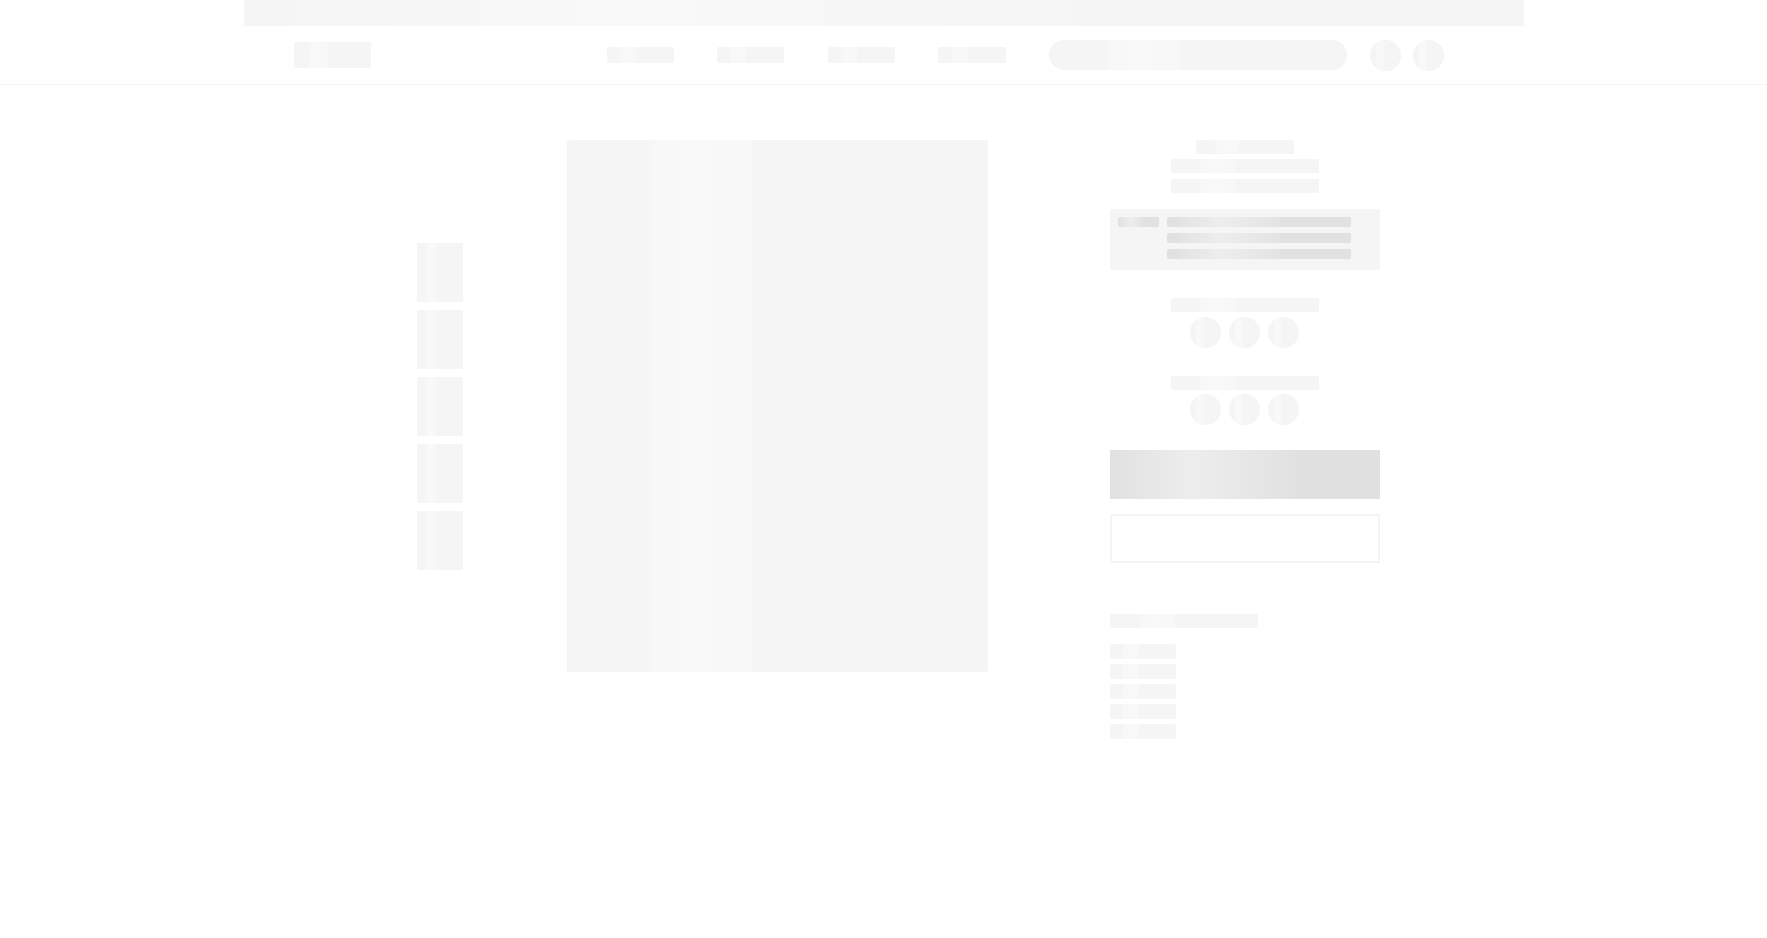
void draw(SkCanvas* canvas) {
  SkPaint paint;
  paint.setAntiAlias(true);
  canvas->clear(0xffffffff);
  paint.setColor(0xfff5f5f5);
  canvas->drawRect(SkRect::MakeXYWH(0, 84, 1767, 1), paint);
  {
    const SkColor colors[] = {0xfff5f5f5, 0xfff9f9f9, 0xfff5f5f5};
    const float stops[] = {0, 0.3f, 0.7f};
    const SkPoint ends[] = {{244, 13}, {1524, 13}};
    paint.setShader(SkGradientShader::MakeLinear(ends, colors, stops, 3, SkTileMode::kClamp));
    paint.setAlpha(255);
  }
  canvas->drawRect(SkRect::MakeXYWH(244, 0, 1280, 26), paint);
  paint.setShader(nullptr);
  paint.setColor(0xfff5f5f5);
  canvas->drawRoundRect(SkRect::MakeXYWH(294, 42, 77, 26), 2, 2, paint);
  {
    const SkColor colors[] = {0x00ffffff, 0x66ffffff, 0x00ffffff};
    const float stops[] = {0, 0.3f, 0.7f};
    const SkPoint ends[] = {{294, 55}, {371, 55}};
    paint.setShader(SkGradientShader::MakeLinear(ends, colors, stops, 3, SkTileMode::kClamp));
    paint.setAlpha(255);
  }
  canvas->drawRect(SkRect::MakeXYWH(309, 42, 19, 26), paint);
  paint.setShader(nullptr);
  paint.setColor(0xfff5f5f5);
  canvas->drawRoundRect(SkRect::MakeXYWH(607, 47, 67, 16), 2, 2, paint);
  {
    const SkColor colors[] = {0x00ffffff, 0x66ffffff, 0x00ffffff};
    const float stops[] = {0, 0.3f, 0.7f};
    const SkPoint ends[] = {{607, 55}, {674, 55}};
    paint.setShader(SkGradientShader::MakeLinear(ends, colors, stops, 3, SkTileMode::kClamp));
    paint.setAlpha(255);
  }
  canvas->drawRect(SkRect::MakeXYWH(620, 47, 16, 16), paint);
  paint.setShader(nullptr);
  paint.setColor(0xfff5f5f5);
  canvas->drawRoundRect(SkRect::MakeXYWH(717, 47, 67, 16), 2, 2, paint);
  {
    const SkColor colors[] = {0x00ffffff, 0x66ffffff, 0x00ffffff};
    const float stops[] = {0, 0.3f, 0.7f};
    const SkPoint ends[] = {{717, 55}, {784, 55}};
    paint.setShader(SkGradientShader::MakeLinear(ends, colors, stops, 3, SkTileMode::kClamp));
    paint.setAlpha(255);
  }
  canvas->drawRect(SkRect::MakeXYWH(730, 47, 16, 16), paint);
  paint.setShader(nullptr);
  paint.setColor(0xfff5f5f5);
  canvas->drawRoundRect(SkRect::MakeXYWH(828, 47, 67, 16), 2, 2, paint);
  {
    const SkColor colors[] = {0x00ffffff, 0x66ffffff, 0x00ffffff};
    const float stops[] = {0, 0.3f, 0.7f};
    const SkPoint ends[] = {{828, 55}, {895, 55}};
    paint.setShader(SkGradientShader::MakeLinear(ends, colors, stops, 3, SkTileMode::kClamp));
    paint.setAlpha(255);
  }
  canvas->drawRect(SkRect::MakeXYWH(841, 47, 16, 16), paint);
  paint.setShader(nullptr);
  paint.setColor(0xfff5f5f5);
  canvas->drawRoundRect(SkRect::MakeXYWH(938, 47, 68, 16), 2, 2, paint);
  {
    const SkColor colors[] = {0x00ffffff, 0x66ffffff, 0x00ffffff};
    const float stops[] = {0, 0.3f, 0.7f};
    const SkPoint ends[] = {{938, 55}, {1006, 55}};
    paint.setShader(SkGradientShader::MakeLinear(ends, colors, stops, 3, SkTileMode::kClamp));
    paint.setAlpha(255);
  }
  canvas->drawRect(SkRect::MakeXYWH(951, 47, 17, 16), paint);
  paint.setShader(nullptr);
  paint.setColor(0xfff5f5f5);
  canvas->drawRoundRect(SkRect::MakeXYWH(1049, 40, 298, 30), 15, 15, paint);
  {
    const SkColor colors[] = {0x00ffffff, 0x66ffffff, 0x00ffffff};
    const float stops[] = {0, 0.3f, 0.7f};
    const SkPoint ends[] = {{1049, 55}, {1347, 55}};
    paint.setShader(SkGradientShader::MakeLinear(ends, colors, stops, 3, SkTileMode::kClamp));
    paint.setAlpha(255);
  }
  canvas->drawRect(SkRect::MakeXYWH(1107, 40, 73, 30), paint);
  paint.setShader(nullptr);
  paint.setColor(0xfff5f5f5);
  canvas->drawCircle(1385.5f, 55.5f, 15.5f, paint);
  {
    const SkColor colors[] = {0x00ffffff, 0x66ffffff, 0x00ffffff};
    const float stops[] = {0, 0.3f, 0.7f};
    const SkPoint ends[] = {{1370, 56}, {1401, 56}};
    paint.setShader(SkGradientShader::MakeLinear(ends, colors, stops, 3, SkTileMode::kClamp));
    paint.setAlpha(255);
  }
  canvas->drawRect(SkRect::MakeXYWH(1376, 41, 8, 29), paint);
  paint.setShader(nullptr);
  paint.setColor(0xfff5f5f5);
  canvas->drawCircle(1428.5f, 55.5f, 15.5f, paint);
  {
    const SkColor colors[] = {0x00ffffff, 0x66ffffff, 0x00ffffff};
    const float stops[] = {0, 0.3f, 0.7f};
    const SkPoint ends[] = {{1413, 56}, {1444, 56}};
    paint.setShader(SkGradientShader::MakeLinear(ends, colors, stops, 3, SkTileMode::kClamp));
    paint.setAlpha(255);
  }
  canvas->drawRect(SkRect::MakeXYWH(1419, 41, 8, 29), paint);
  paint.setShader(nullptr);
  paint.setColor(0xfff5f5f5);
  canvas->drawRoundRect(SkRect::MakeXYWH(417, 243, 46, 59), 2, 2, paint);
  {
    const SkColor colors[] = {0x00ffffff, 0x66ffffff, 0x00ffffff};
    const float stops[] = {0, 0.3f, 0.7f};
    const SkPoint ends[] = {{417, 273}, {463, 273}};
    paint.setShader(SkGradientShader::MakeLinear(ends, colors, stops, 3, SkTileMode::kClamp));
    paint.setAlpha(255);
  }
  canvas->drawRect(SkRect::MakeXYWH(426, 243, 11, 59), paint);
  paint.setShader(nullptr);
  paint.setColor(0xfff5f5f5);
  canvas->drawRoundRect(SkRect::MakeXYWH(417, 310, 46, 59), 2, 2, paint);
  {
    const SkColor colors[] = {0x00ffffff, 0x66ffffff, 0x00ffffff};
    const float stops[] = {0, 0.3f, 0.7f};
    const SkPoint ends[] = {{417, 340}, {463, 340}};
    paint.setShader(SkGradientShader::MakeLinear(ends, colors, stops, 3, SkTileMode::kClamp));
    paint.setAlpha(255);
  }
  canvas->drawRect(SkRect::MakeXYWH(426, 310, 11, 59), paint);
  paint.setShader(nullptr);
  paint.setColor(0xfff5f5f5);
  canvas->drawRoundRect(SkRect::MakeXYWH(417, 377, 46, 59), 2, 2, paint);
  {
    const SkColor colors[] = {0x00ffffff, 0x66ffffff, 0x00ffffff};
    const float stops[] = {0, 0.3f, 0.7f};
    const SkPoint ends[] = {{417, 407}, {463, 407}};
    paint.setShader(SkGradientShader::MakeLinear(ends, colors, stops, 3, SkTileMode::kClamp));
    paint.setAlpha(255);
  }
  canvas->drawRect(SkRect::MakeXYWH(426, 377, 11, 59), paint);
  paint.setShader(nullptr);
  paint.setColor(0xfff5f5f5);
  canvas->drawRoundRect(SkRect::MakeXYWH(417, 444, 46, 59), 2, 2, paint);
  {
    const SkColor colors[] = {0x00ffffff, 0x66ffffff, 0x00ffffff};
    const float stops[] = {0, 0.3f, 0.7f};
    const SkPoint ends[] = {{417, 474}, {463, 474}};
    paint.setShader(SkGradientShader::MakeLinear(ends, colors, stops, 3, SkTileMode::kClamp));
    paint.setAlpha(255);
  }
  canvas->drawRect(SkRect::MakeXYWH(426, 444, 11, 59), paint);
  paint.setShader(nullptr);
  paint.setColor(0xfff5f5f5);
  canvas->drawRoundRect(SkRect::MakeXYWH(417, 511, 46, 59), 2, 2, paint);
  {
    const SkColor colors[] = {0x00ffffff, 0x66ffffff, 0x00ffffff};
    const float stops[] = {0, 0.3f, 0.7f};
    const SkPoint ends[] = {{417, 541}, {463, 541}};
    paint.setShader(SkGradientShader::MakeLinear(ends, colors, stops, 3, SkTileMode::kClamp));
    paint.setAlpha(255);
  }
  canvas->drawRect(SkRect::MakeXYWH(426, 511, 11, 59), paint);
  paint.setShader(nullptr);
  paint.setColor(0xfff5f5f5);
  canvas->drawRoundRect(SkRect::MakeXYWH(567, 140, 421, 532), 2, 2, paint);
  {
    const SkColor colors[] = {0x00ffffff, 0x66ffffff, 0x00ffffff};
    const float stops[] = {0, 0.3f, 0.7f};
    const SkPoint ends[] = {{567, 406}, {988, 406}};
    paint.setShader(SkGradientShader::MakeLinear(ends, colors, stops, 3, SkTileMode::kClamp));
    paint.setAlpha(255);
  }
  canvas->drawRect(SkRect::MakeXYWH(649, 140, 103, 532), paint);
  paint.setShader(nullptr);
  paint.setColor(0xfff5f5f5);
  canvas->drawRoundRect(SkRect::MakeXYWH(1196, 140, 98, 14), 2, 2, paint);
  {
    const SkColor colors[] = {0x00ffffff, 0x66ffffff, 0x00ffffff};
    const float stops[] = {0, 0.3f, 0.7f};
    const SkPoint ends[] = {{1196, 147}, {1294, 147}};
    paint.setShader(SkGradientShader::MakeLinear(ends, colors, stops, 3, SkTileMode::kClamp));
    paint.setAlpha(255);
  }
  canvas->drawRect(SkRect::MakeXYWH(1215, 140, 24, 14), paint);
  paint.setShader(nullptr);
  paint.setColor(0xfff5f5f5);
  canvas->drawRoundRect(SkRect::MakeXYWH(1171, 159, 148, 14), 2, 2, paint);
  {
    const SkColor colors[] = {0x00ffffff, 0x66ffffff, 0x00ffffff};
    const float stops[] = {0, 0.3f, 0.7f};
    const SkPoint ends[] = {{1171, 166}, {1319, 166}};
    paint.setShader(SkGradientShader::MakeLinear(ends, colors, stops, 3, SkTileMode::kClamp));
    paint.setAlpha(255);
  }
  canvas->drawRect(SkRect::MakeXYWH(1200, 159, 36, 14), paint);
  paint.setShader(nullptr);
  paint.setColor(0xfff5f5f5);
  canvas->drawRoundRect(SkRect::MakeXYWH(1171, 179, 148, 14), 2, 2, paint);
  {
    const SkColor colors[] = {0x00ffffff, 0x66ffffff, 0x00ffffff};
    const float stops[] = {0, 0.3f, 0.7f};
    const SkPoint ends[] = {{1171, 186}, {1319, 186}};
    paint.setShader(SkGradientShader::MakeLinear(ends, colors, stops, 3, SkTileMode::kClamp));
    paint.setAlpha(255);
  }
  canvas->drawRect(SkRect::MakeXYWH(1200, 179, 36, 14), paint);
  paint.setShader(nullptr);
  paint.setColor(0xfff5f5f5);
  canvas->drawRoundRect(SkRect::MakeXYWH(1110, 209, 270, 61), 2, 2, paint);
  paint.setColor(0xffe1e1e1);
  canvas->drawRoundRect(SkRect::MakeXYWH(1118, 217, 41, 10), 2, 2, paint);
  {
    const SkColor colors[] = {0x00ffffff, 0x66ffffff, 0x00ffffff};
    const float stops[] = {0, 0.3f, 0.7f};
    const SkPoint ends[] = {{1118, 222}, {1159, 222}};
    paint.setShader(SkGradientShader::MakeLinear(ends, colors, stops, 3, SkTileMode::kClamp));
    paint.setAlpha(255);
  }
  canvas->drawRect(SkRect::MakeXYWH(1121, 217, 22, 10), paint);
  paint.setShader(nullptr);
  paint.setColor(0xffe1e1e1);
  canvas->drawRoundRect(SkRect::MakeXYWH(1167, 217, 184, 10), 2, 2, paint);
  {
    const SkColor colors[] = {0x00ffffff, 0x66ffffff, 0x00ffffff};
    const float stops[] = {0, 0.3f, 0.7f};
    const SkPoint ends[] = {{1167, 222}, {1351, 222}};
    paint.setShader(SkGradientShader::MakeLinear(ends, colors, stops, 3, SkTileMode::kClamp));
    paint.setAlpha(255);
  }
  canvas->drawRect(SkRect::MakeXYWH(1179, 217, 101, 10), paint);
  paint.setShader(nullptr);
  paint.setColor(0xffe1e1e1);
  canvas->drawRoundRect(SkRect::MakeXYWH(1167, 233, 184, 10), 2, 2, paint);
  {
    const SkColor colors[] = {0x00ffffff, 0x66ffffff, 0x00ffffff};
    const float stops[] = {0, 0.3f, 0.7f};
    const SkPoint ends[] = {{1167, 238}, {1351, 238}};
    paint.setShader(SkGradientShader::MakeLinear(ends, colors, stops, 3, SkTileMode::kClamp));
    paint.setAlpha(255);
  }
  canvas->drawRect(SkRect::MakeXYWH(1179, 233, 101, 10), paint);
  paint.setShader(nullptr);
  paint.setColor(0xffe1e1e1);
  canvas->drawRoundRect(SkRect::MakeXYWH(1167, 249, 184, 10), 2, 2, paint);
  {
    const SkColor colors[] = {0x00ffffff, 0x66ffffff, 0x00ffffff};
    const float stops[] = {0, 0.3f, 0.7f};
    const SkPoint ends[] = {{1167, 254}, {1351, 254}};
    paint.setShader(SkGradientShader::MakeLinear(ends, colors, stops, 3, SkTileMode::kClamp));
    paint.setAlpha(255);
  }
  canvas->drawRect(SkRect::MakeXYWH(1179, 249, 101, 10), paint);
  paint.setShader(nullptr);
  paint.setColor(0xfff5f5f5);
  canvas->drawRoundRect(SkRect::MakeXYWH(1171, 298, 148, 14), 2, 2, paint);
  {
    const SkColor colors[] = {0x00ffffff, 0x66ffffff, 0x00ffffff};
    const float stops[] = {0, 0.3f, 0.7f};
    const SkPoint ends[] = {{1171, 305}, {1319, 305}};
    paint.setShader(SkGradientShader::MakeLinear(ends, colors, stops, 3, SkTileMode::kClamp));
    paint.setAlpha(255);
  }
  canvas->drawRect(SkRect::MakeXYWH(1200, 298, 36, 14), paint);
  paint.setShader(nullptr);
  paint.setColor(0xfff5f5f5);
  canvas->drawCircle(1205.5f, 332.5f, 15.5f, paint);
  {
    const SkColor colors[] = {0x00ffffff, 0x66ffffff, 0x00ffffff};
    const float stops[] = {0, 0.3f, 0.7f};
    const SkPoint ends[] = {{1190, 333}, {1221, 333}};
    paint.setShader(SkGradientShader::MakeLinear(ends, colors, stops, 3, SkTileMode::kClamp));
    paint.setAlpha(255);
  }
  canvas->drawRect(SkRect::MakeXYWH(1196, 318, 8, 29), paint);
  paint.setShader(nullptr);
  paint.setColor(0xfff5f5f5);
  canvas->drawCircle(1244.5f, 332.5f, 15.5f, paint);
  {
    const SkColor colors[] = {0x00ffffff, 0x66ffffff, 0x00ffffff};
    const float stops[] = {0, 0.3f, 0.7f};
    const SkPoint ends[] = {{1229, 333}, {1260, 333}};
    paint.setShader(SkGradientShader::MakeLinear(ends, colors, stops, 3, SkTileMode::kClamp));
    paint.setAlpha(255);
  }
  canvas->drawRect(SkRect::MakeXYWH(1235, 318, 8, 29), paint);
  paint.setShader(nullptr);
  paint.setColor(0xfff5f5f5);
  canvas->drawCircle(1283.5f, 332.5f, 15.5f, paint);
  {
    const SkColor colors[] = {0x00ffffff, 0x66ffffff, 0x00ffffff};
    const float stops[] = {0, 0.3f, 0.7f};
    const SkPoint ends[] = {{1268, 333}, {1299, 333}};
    paint.setShader(SkGradientShader::MakeLinear(ends, colors, stops, 3, SkTileMode::kClamp));
    paint.setAlpha(255);
  }
  canvas->drawRect(SkRect::MakeXYWH(1274, 318, 8, 29), paint);
  paint.setShader(nullptr);
  paint.setColor(0xfff5f5f5);
  canvas->drawRoundRect(SkRect::MakeXYWH(1171, 376, 148, 14), 2, 2, paint);
  {
    const SkColor colors[] = {0x00ffffff, 0x66ffffff, 0x00ffffff};
    const float stops[] = {0, 0.3f, 0.7f};
    const SkPoint ends[] = {{1171, 383}, {1319, 383}};
    paint.setShader(SkGradientShader::MakeLinear(ends, colors, stops, 3, SkTileMode::kClamp));
    paint.setAlpha(255);
  }
  canvas->drawRect(SkRect::MakeXYWH(1200, 376, 36, 14), paint);
  paint.setShader(nullptr);
  paint.setColor(0xfff5f5f5);
  canvas->drawCircle(1205.5f, 409.5f, 15.5f, paint);
  {
    const SkColor colors[] = {0x00ffffff, 0x66ffffff, 0x00ffffff};
    const float stops[] = {0, 0.3f, 0.7f};
    const SkPoint ends[] = {{1190, 410}, {1221, 410}};
    paint.setShader(SkGradientShader::MakeLinear(ends, colors, stops, 3, SkTileMode::kClamp));
    paint.setAlpha(255);
  }
  canvas->drawRect(SkRect::MakeXYWH(1196, 395, 8, 29), paint);
  paint.setShader(nullptr);
  paint.setColor(0xfff5f5f5);
  canvas->drawCircle(1244.5f, 409.5f, 15.5f, paint);
  {
    const SkColor colors[] = {0x00ffffff, 0x66ffffff, 0x00ffffff};
    const float stops[] = {0, 0.3f, 0.7f};
    const SkPoint ends[] = {{1229, 410}, {1260, 410}};
    paint.setShader(SkGradientShader::MakeLinear(ends, colors, stops, 3, SkTileMode::kClamp));
    paint.setAlpha(255);
  }
  canvas->drawRect(SkRect::MakeXYWH(1235, 395, 8, 29), paint);
  paint.setShader(nullptr);
  paint.setColor(0xfff5f5f5);
  canvas->drawCircle(1283.5f, 409.5f, 15.5f, paint);
  {
    const SkColor colors[] = {0x00ffffff, 0x66ffffff, 0x00ffffff};
    const float stops[] = {0, 0.3f, 0.7f};
    const SkPoint ends[] = {{1268, 410}, {1299, 410}};
    paint.setShader(SkGradientShader::MakeLinear(ends, colors, stops, 3, SkTileMode::kClamp));
    paint.setAlpha(255);
  }
  canvas->drawRect(SkRect::MakeXYWH(1274, 395, 8, 29), paint);
  {
    const SkColor colors[] = {0xffe1e1e1, 0xffededed, 0xffe1e1e1};
    const float stops[] = {0, 0.3f, 0.7f};
    const SkPoint ends[] = {{1110, 475}, {1380, 475}};
    paint.setShader(SkGradientShader::MakeLinear(ends, colors, stops, 3, SkTileMode::kClamp));
    paint.setAlpha(255);
  }
  canvas->drawRect(SkRect::MakeXYWH(1110, 450, 270, 49), paint);
  paint.setStroke(true);
  paint.setStrokeWidth(2);
  paint.setShader(nullptr);
  paint.setColor(0xfff5f5f5);
  canvas->drawRect(SkRect::MakeXYWH(1111, 515, 268, 47), paint);
  paint.setStroke(false);
  canvas->drawRoundRect(SkRect::MakeXYWH(1110, 614, 148, 14), 2, 2, paint);
  {
    const SkColor colors[] = {0x00ffffff, 0x66ffffff, 0x00ffffff};
    const float stops[] = {0, 0.3f, 0.7f};
    const SkPoint ends[] = {{1110, 621}, {1258, 621}};
    paint.setShader(SkGradientShader::MakeLinear(ends, colors, stops, 3, SkTileMode::kClamp));
    paint.setAlpha(255);
  }
  canvas->drawRect(SkRect::MakeXYWH(1139, 614, 36, 14), paint);
  paint.setShader(nullptr);
  paint.setColor(0xfff5f5f5);
  canvas->drawRoundRect(SkRect::MakeXYWH(1110, 644, 66, 15), 2, 2, paint);
  {
    const SkColor colors[] = {0x00ffffff, 0x66ffffff, 0x00ffffff};
    const float stops[] = {0, 0.3f, 0.7f};
    const SkPoint ends[] = {{1110, 652}, {1176, 652}};
    paint.setShader(SkGradientShader::MakeLinear(ends, colors, stops, 3, SkTileMode::kClamp));
    paint.setAlpha(255);
  }
  canvas->drawRect(SkRect::MakeXYWH(1123, 644, 16, 15), paint);
  paint.setShader(nullptr);
  paint.setColor(0xfff5f5f5);
  canvas->drawRoundRect(SkRect::MakeXYWH(1110, 664, 66, 15), 2, 2, paint);
  {
    const SkColor colors[] = {0x00ffffff, 0x66ffffff, 0x00ffffff};
    const float stops[] = {0, 0.3f, 0.7f};
    const SkPoint ends[] = {{1110, 672}, {1176, 672}};
    paint.setShader(SkGradientShader::MakeLinear(ends, colors, stops, 3, SkTileMode::kClamp));
    paint.setAlpha(255);
  }
  canvas->drawRect(SkRect::MakeXYWH(1123, 664, 16, 15), paint);
  paint.setShader(nullptr);
  paint.setColor(0xfff5f5f5);
  canvas->drawRoundRect(SkRect::MakeXYWH(1110, 684, 66, 15), 2, 2, paint);
  {
    const SkColor colors[] = {0x00ffffff, 0x66ffffff, 0x00ffffff};
    const float stops[] = {0, 0.3f, 0.7f};
    const SkPoint ends[] = {{1110, 692}, {1176, 692}};
    paint.setShader(SkGradientShader::MakeLinear(ends, colors, stops, 3, SkTileMode::kClamp));
    paint.setAlpha(255);
  }
  canvas->drawRect(SkRect::MakeXYWH(1123, 684, 16, 15), paint);
  paint.setShader(nullptr);
  paint.setColor(0xfff5f5f5);
  canvas->drawRoundRect(SkRect::MakeXYWH(1110, 704, 66, 15), 2, 2, paint);
  {
    const SkColor colors[] = {0x00ffffff, 0x66ffffff, 0x00ffffff};
    const float stops[] = {0, 0.3f, 0.7f};
    const SkPoint ends[] = {{1110, 712}, {1176, 712}};
    paint.setShader(SkGradientShader::MakeLinear(ends, colors, stops, 3, SkTileMode::kClamp));
    paint.setAlpha(255);
  }
  canvas->drawRect(SkRect::MakeXYWH(1123, 704, 16, 15), paint);
  paint.setShader(nullptr);
  paint.setColor(0xfff5f5f5);
  canvas->drawRoundRect(SkRect::MakeXYWH(1110, 724, 66, 15), 2, 2, paint);
  {
    const SkColor colors[] = {0x00ffffff, 0x66ffffff, 0x00ffffff};
    const float stops[] = {0, 0.3f, 0.7f};
    const SkPoint ends[] = {{1110, 732}, {1176, 732}};
    paint.setShader(SkGradientShader::MakeLinear(ends, colors, stops, 3, SkTileMode::kClamp));
    paint.setAlpha(255);
  }
  canvas->drawRect(SkRect::MakeXYWH(1123, 724, 16, 15), paint);
}
